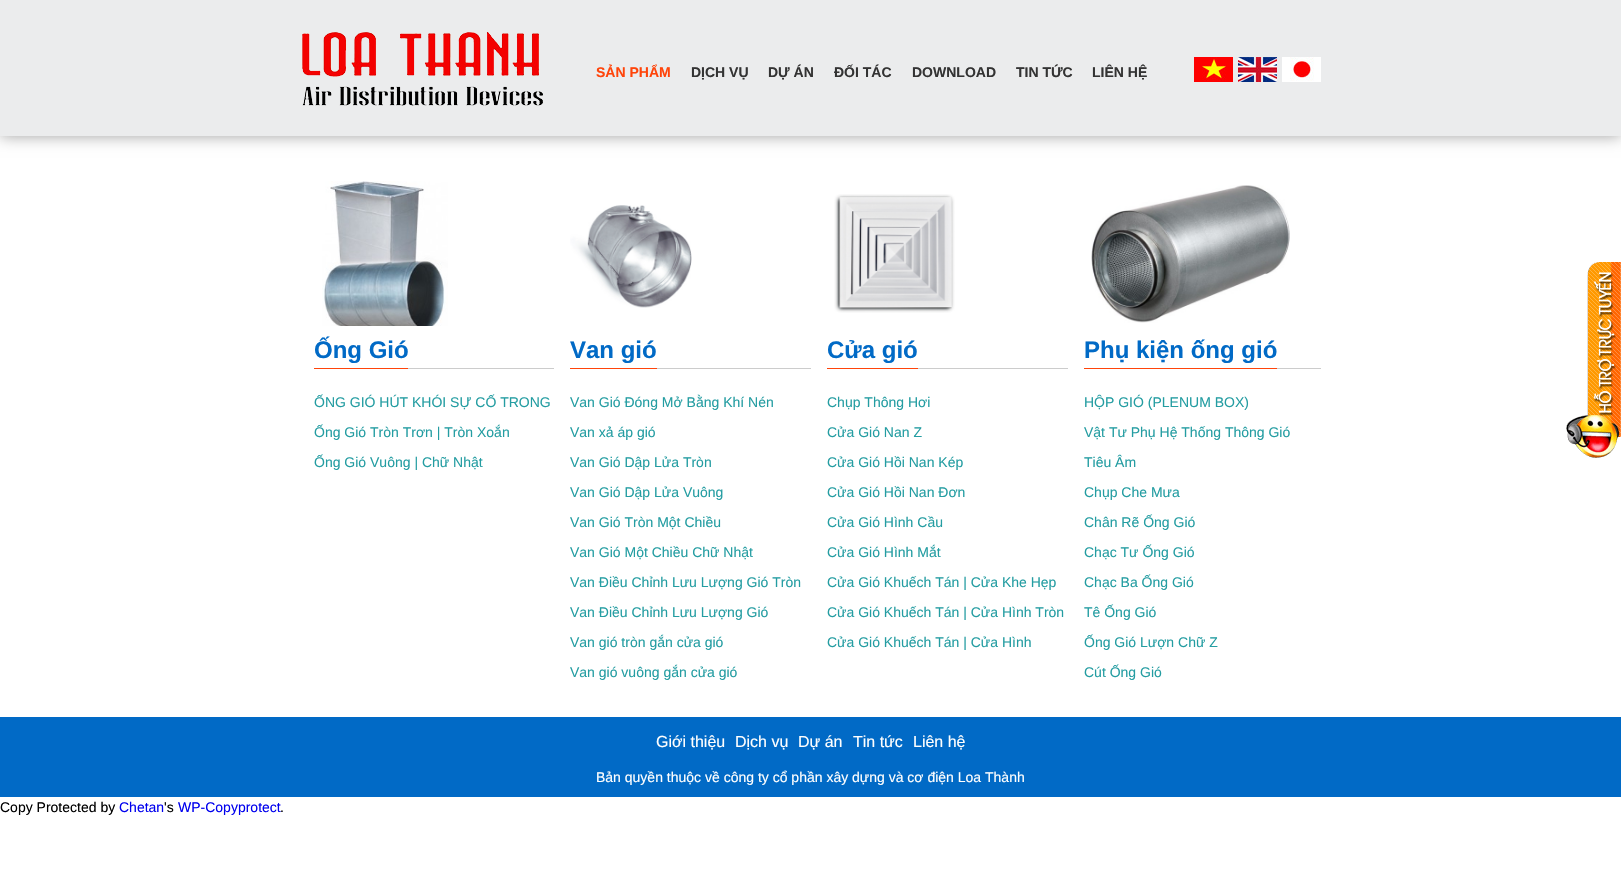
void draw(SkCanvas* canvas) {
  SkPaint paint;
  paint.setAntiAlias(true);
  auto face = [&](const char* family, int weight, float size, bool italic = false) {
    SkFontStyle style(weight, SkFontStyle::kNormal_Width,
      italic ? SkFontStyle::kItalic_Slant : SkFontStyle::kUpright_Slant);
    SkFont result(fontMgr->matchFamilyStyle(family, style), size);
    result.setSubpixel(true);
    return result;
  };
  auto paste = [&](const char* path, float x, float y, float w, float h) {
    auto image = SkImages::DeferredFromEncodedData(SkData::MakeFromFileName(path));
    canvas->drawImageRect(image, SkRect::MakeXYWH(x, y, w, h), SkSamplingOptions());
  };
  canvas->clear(0xffffffff);
  paint.setColor(0xffa1a1a1);
  paint.setMaskFilter(SkMaskFilter::MakeBlur(kNormal_SkBlurStyle, 7.5f));
  canvas->drawRect(SkRect::MakeXYWH(0, 0, 1621, 136), paint);
  paint.setMaskFilter(nullptr);
  paint.setColor(0xffebeced);
  canvas->drawRect(SkRect::MakeXYWH(0, 0, 1621, 136), paint);
  paste("img/1.png", 302, 31, 241, 75);
  paste("img/2.png", 1194, 57, 39, 25);
  paste("img/3.png", 1238, 57, 39, 25);
  paste("img/4.png", 1282, 57, 39, 25);
  paste("img/5.png", 1566, 262, 55, 196);
  paste("img/6.png", 322, 181, 126, 145);
  paint.setColor(0xffcccccc);
  canvas->drawRect(SkRect::MakeXYWH(408, 368, 146, 1), paint);
  paint.setColor(0xffff440a);
  canvas->drawRect(SkRect::MakeXYWH(314, 368, 94, 1), paint);
  paste("img/7.png", 570, 205, 122, 103);
  paint.setColor(0xffcccccc);
  canvas->drawRect(SkRect::MakeXYWH(657, 368, 154, 1), paint);
  paint.setColor(0xffff440a);
  canvas->drawRect(SkRect::MakeXYWH(570, 368, 87, 1), paint);
  paste("img/8.png", 834, 194, 121, 119);
  paint.setColor(0xffcccccc);
  canvas->drawRect(SkRect::MakeXYWH(918, 368, 150, 1), paint);
  paint.setColor(0xffff440a);
  canvas->drawRect(SkRect::MakeXYWH(827, 368, 91, 1), paint);
  paste("img/9.png", 1091, 185, 199, 138);
  {
    const struct { float x, y, w, h; SkColor color; } items[] = {
      {1277, 368, 44, 1, 0xffcccccc},
      {1084, 368, 193, 1, 0xffff440a},
      {0, 717, 1621, 80, 0xff016ac6},
    };
    for (auto [x, y, w, h, color] : items) {
      paint.setColor(color);
      canvas->drawRect(SkRect::MakeXYWH(x, y, w, h), paint);
    }
  }
  auto f0 = face("Liberation Sans", 700, 14);
  paint.setColor(0xffff440a);
  canvas->drawString("SẢN PHẨM", 596, 77, f0, paint);
  paint.setColor(0xff333333);
  {
    const struct { const char* s; float x, y; } items[] = {
      {"DỊCH VỤ", 691, 77},
      {"DỰ ÁN", 768, 77},
      {"ĐỐI TÁC", 834, 77},
      {"DOWNLOAD", 912, 77},
      {"TIN TỨC", 1016, 77},
      {"LIÊN HỆ", 1092, 77},
    };
    for (auto [s, x, y] : items) {
      canvas->drawString(s, x, y, f0, paint);
    }
  }
  auto f1 = face("Liberation Sans", 700, 24);
  paint.setColor(0xff016ac6);
  canvas->drawString("Ống Gió", 314, 358, f1, paint);
  auto f2 = face("Liberation Sans", 400, 14);
  paint.setColor(0xff249da2);
  {
    const struct { const char* s; float x, y; } items[] = {
      {"ỐNG GIÓ HÚT KHÓI SỰ CỐ TRONG", 314, 407},
      {"Ống Gió Tròn Trơn | Tròn Xoắn", 314, 437},
      {"Ống Gió Vuông | Chữ Nhật", 314, 467},
    };
    for (auto [s, x, y] : items) {
      canvas->drawString(s, x, y, f2, paint);
    }
  }
  paint.setColor(0xff016ac6);
  canvas->drawString("Van gió", 570, 358, f1, paint);
  paint.setColor(0xff249da2);
  {
    const struct { const char* s; float x, y; } items[] = {
      {"Van Gió Đóng Mở Bằng Khí Nén", 570, 407},
      {"Van xả áp gió", 570, 437},
      {"Van Gió Dập Lửa Tròn", 570, 467},
      {"Van Gió Dập Lửa Vuông", 570, 497},
      {"Van Gió Tròn Một Chiều", 570, 527},
      {"Van Gió Một Chiều Chữ Nhật", 570, 557},
      {"Van Điều Chỉnh Lưu Lượng Gió Tròn", 570, 587},
      {"Van Điều Chỉnh Lưu Lượng Gió", 570, 617},
      {"Van gió tròn gắn cửa gió", 570, 647},
      {"Van gió vuông gắn cửa gió", 570, 677},
    };
    for (auto [s, x, y] : items) {
      canvas->drawString(s, x, y, f2, paint);
    }
  }
  paint.setColor(0xff016ac6);
  canvas->drawString("Cửa gió", 827, 358, f1, paint);
  paint.setColor(0xff249da2);
  {
    const struct { const char* s; float x, y; } items[] = {
      {"Chụp Thông Hơi", 827, 407},
      {"Cửa Gió Nan Z", 827, 437},
      {"Cửa Gió Hồi Nan Kép", 827, 467},
      {"Cửa Gió Hồi Nan Đơn", 827, 497},
      {"Cửa Gió Hình Cầu", 827, 527},
      {"Cửa Gió Hình Mắt", 827, 557},
      {"Cửa Gió Khuếch Tán | Cửa Khe Hẹp", 827, 587},
      {"Cửa Gió Khuếch Tán | Cửa Hình Tròn", 827, 617},
      {"Cửa Gió Khuếch Tán | Cửa Hình", 827, 647},
    };
    for (auto [s, x, y] : items) {
      canvas->drawString(s, x, y, f2, paint);
    }
  }
  paint.setColor(0xff016ac6);
  canvas->drawString("Phụ kiện ống gió", 1084, 358, f1, paint);
  paint.setColor(0xff249da2);
  {
    const struct { const char* s; float x, y; } items[] = {
      {"HỘP GIÓ (PLENUM BOX)", 1084, 407},
      {"Vật Tư Phụ Hệ Thống Thông Gió", 1084, 437},
      {"Tiêu Âm", 1084, 467},
      {"Chụp Che Mưa", 1084, 497},
      {"Chân Rẽ Ống Gió", 1084, 527},
      {"Chạc Tư Ống Gió", 1084, 557},
      {"Chạc Ba Ống Gió", 1084, 587},
      {"Tê Ống Gió", 1084, 617},
      {"Ống Gió Lượn Chữ Z", 1084, 647},
      {"Cút Ống Gió", 1084, 677},
    };
    for (auto [s, x, y] : items) {
      canvas->drawString(s, x, y, f2, paint);
    }
  }
  auto f3 = face("Liberation Sans", 400, 16);
  paint.setColor(0xffffffff);
  {
    const struct { const char* s; float x, y; } items[] = {
      {"Giới thiệu", 656, 747},
      {"Dịch vụ", 735, 747},
      {"Dự án", 798, 747},
      {"Tin tức", 853, 747},
      {"Liên hệ", 913, 747},
    };
    for (auto [s, x, y] : items) {
      canvas->drawString(s, x, y, f3, paint);
    }
  }
  canvas->drawString("Bản quyền thuộc về công ty cổ phần xây dựng và cơ điện Loa Thành", 596, 782, f2, paint);
  paint.setColor(0xff000000);
  canvas->drawString("Copy Protected by", 0, 812, f2, paint);
  paint.setColor(0xff0000ee);
  canvas->drawString("Chetan", 119, 812, f2, paint);
  paint.setColor(0xff000000);
  canvas->drawString("'s", 164, 812, f2, paint);
  paint.setColor(0xff0000ee);
  canvas->drawString("WP-Copyprotect", 178, 812, f2, paint);
  paint.setColor(0xff000000);
  canvas->drawString(".", 280, 812, f2, paint);
}
